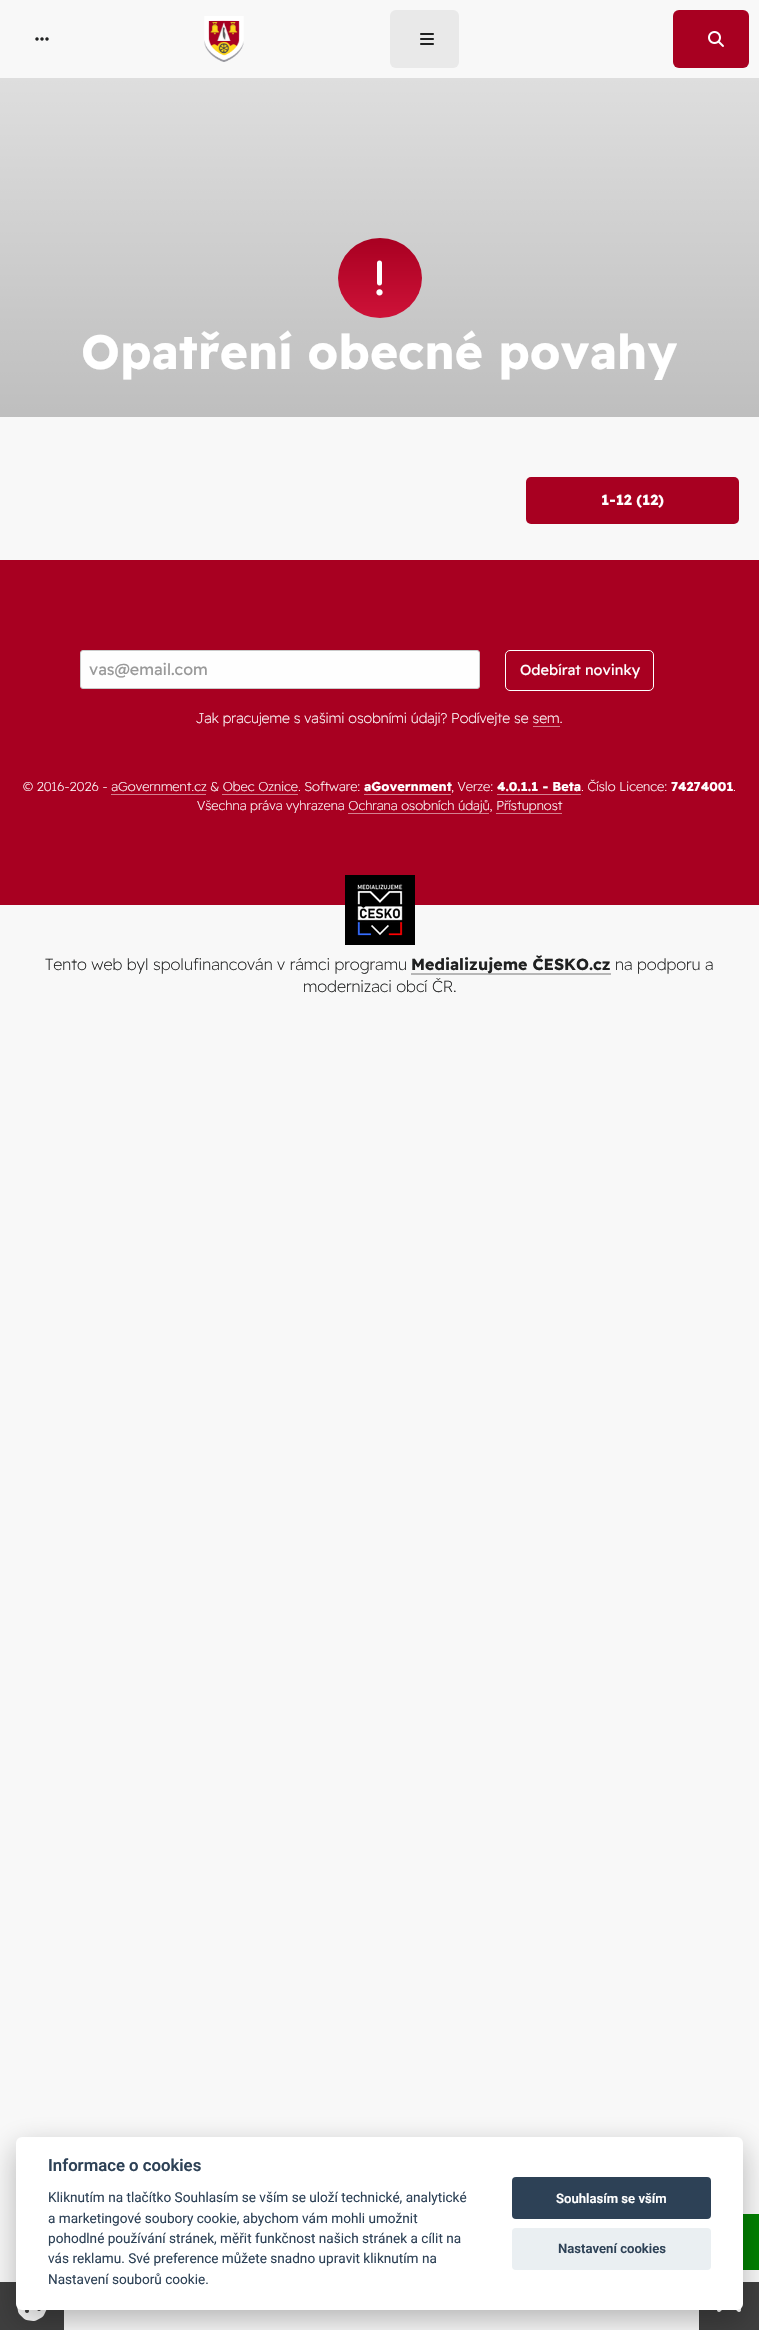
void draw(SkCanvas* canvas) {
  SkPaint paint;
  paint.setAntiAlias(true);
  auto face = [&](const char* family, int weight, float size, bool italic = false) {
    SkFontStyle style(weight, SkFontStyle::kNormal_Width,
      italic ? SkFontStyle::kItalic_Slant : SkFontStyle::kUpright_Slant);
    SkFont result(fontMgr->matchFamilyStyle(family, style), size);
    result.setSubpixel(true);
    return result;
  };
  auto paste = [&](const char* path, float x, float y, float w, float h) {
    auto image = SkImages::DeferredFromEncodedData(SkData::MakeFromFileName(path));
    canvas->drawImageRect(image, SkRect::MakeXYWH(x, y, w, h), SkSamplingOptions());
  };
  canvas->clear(0xfff8f8f8);
  paste("img/1.png", 35, 37, 14, 4);
  paste("img/2.png", 204, 16, 40, 46);
  paint.setColor(0xffe9e9e9);
  canvas->drawRoundRect(SkRect::MakeXYWH(390, 10, 69, 58), 6, 6, paint);
  paste("img/3.png", 420, 33, 14, 12);
  paint.setColor(0xffa80021);
  canvas->drawRoundRect(SkRect::MakeXYWH(673, 10, 76, 58), 6, 6, paint);
  paste("img/4.png", 708, 31, 16, 16);
  paste("img/5.png", 0, 78, 759, 339);
  {
    const SkColor colors[] = {0xffa80021, 0xffce1238};
    const float stops[] = {0, 1};
    const SkPoint ends[] = {{380, 238}, {380, 318}};
    paint.setShader(SkGradientShader::MakeLinear(ends, colors, stops, 2, SkTileMode::kClamp));
    paint.setAlpha(255);
  }
  canvas->drawOval(SkRect::MakeXYWH(338, 238, 84, 80), paint);
  paste("img/6.png", 376, 260, 7, 36);
  paint.setShader(nullptr);
  paint.setColor(0xffa80021);
  canvas->drawRoundRect(SkRect::MakeXYWH(526, 477, 213, 47), 5, 5, paint);
  canvas->drawRect(SkRect::MakeXYWH(0, 560, 759, 345), paint);
  paint.setColor(0xfffefefe);
  canvas->drawRoundRect(SkRect::MakeXYWH(80.5f, 650.5f, 399, 38), 2.5f, 2.5f, paint);
  paint.setStroke(true);
  paint.setStrokeWidth(1);
  paint.setColor(0xffcacaca);
  canvas->drawRoundRect(SkRect::MakeXYWH(80.5f, 650.5f, 399, 38), 2.5f, 2.5f, paint);
  paint.setColor(0xffffffff);
  canvas->drawRoundRect(SkRect::MakeXYWH(505.5f, 650.5f, 148, 40), 4.5f, 4.5f, paint);
  paint.setStroke(false);
  {
    const struct { float x, y, w, h; SkColor color; } items[] = {
      {364, 794, 87, 1, 0xffd48090},
      {497, 794, 84, 1, 0xffd48090},
      {111, 794, 95, 1, 0xffd48090},
      {222, 794, 76, 1, 0xffd48090},
      {348, 813, 141, 1, 0xffd48090},
      {496, 813, 66, 1, 0xffd48090},
    };
    for (auto [x, y, w, h, color] : items) {
      paint.setColor(color);
      canvas->drawRect(SkRect::MakeXYWH(x, y, w, h), paint);
    }
  }
  paste("img/7.png", 345, 875, 70, 70);
  {
    const struct { float x, y, w, h; SkColor color; } items[] = {
      {411, 973, 200, 2, 0xffb7b7b7},
      {743, 2214, 16, 56, 0xff008000},
      {0, 2282, 64, 48, 0xff3e3e3e},
    };
    for (auto [x, y, w, h, color] : items) {
      paint.setColor(color);
      canvas->drawRect(SkRect::MakeXYWH(x, y, w, h), paint);
    }
  }
  paste("img/8.png", 17, 2307, 30, 14);
  canvas->drawRect(SkRect::MakeXYWH(699, 2282, 60, 48), paint);
  paste("img/9.png", 717, 2308, 24, 4);
  paint.setColor(0x47020203);
  paint.setMaskFilter(SkMaskFilter::MakeBlur(kNormal_SkBlurStyle, 15));
  canvas->drawRoundRect(SkRect::MakeXYWH(16, 2147, 727, 173), 6, 6, paint);
  paint.setMaskFilter(nullptr);
  paint.setColor(0xffffffff);
  canvas->drawRoundRect(SkRect::MakeXYWH(16, 2137, 727, 173), 6, 6, paint);
  paint.setColor(0xff2d4156);
  canvas->drawRoundRect(SkRect::MakeXYWH(512, 2177, 199, 42), 4, 4, paint);
  paint.setColor(0xffeaeff2);
  canvas->drawRoundRect(SkRect::MakeXYWH(512, 2228, 199, 42), 4, 4, paint);
  auto f0 = face("Readex Pro", 700, 48);
  paint.setColor(0xffffffff);
  canvas->drawString("Opatření obecné povahy", 81, 369, f0, paint);
  auto f1 = face("Readex Pro", 700, 14.5f);
  canvas->drawString("1-12 (12)", 601, 505, f1, paint);
  auto f2 = face("Readex Pro", 400, 16);
  paint.setColor(0xff999999);
  canvas->drawString("vas@email.com", 89, 675, f2, paint);
  auto f3 = face("Readex Pro", 400, 14.5f);
  paint.setColor(0xffffffff);
  canvas->drawString("Odebírat novinky", 520, 675, f3, paint);
  auto f4 = face("Readex Pro", 200, 14);
  canvas->drawString("Jak pracujeme s vašimi osobními údaji? Podívejte se sem.", 196, 723, f4, paint);
  paint.setColor(0xffd48090);
  canvas->drawRect(SkRect::MakeXYWH(533, 726, 27, 1), paint);
  auto f5 = face("Readex Pro", 200, 12.8f);
  paint.setColor(0xffffffff);
  canvas->drawString("© 2016-2026 - aGovernment.cz & Obec Oznice. Software:", 23, 791, f5, paint);
  auto f6 = face("Readex Pro", 700, 12.8f);
  canvas->drawString("aGovernment", 364, 791, f6, paint);
  canvas->drawString(", Verze:", 451, 791, f5, paint);
  canvas->drawString("4.0.1.1 - Beta", 497, 791, f6, paint);
  canvas->drawString(". Číslo Licence:", 581, 791, f5, paint);
  canvas->drawString("74274001", 671, 791, f6, paint);
  canvas->drawString(".", 733, 791, f5, paint);
  canvas->drawString("Všechna práva vyhrazena Ochrana osobních údajů, Přístupnost", 197, 810, f5, paint);
  auto f7 = face("Readex Pro", 200, 16);
  paint.setColor(0xff202121);
  canvas->drawString("Tento web byl spolufinancován v rámci programu", 45, 970, f7, paint);
  auto f8 = face("Readex Pro", 700, 16);
  canvas->drawString("Medializujeme ČESKO.cz", 411, 970, f8, paint);
  canvas->drawString("na podporu a", 615, 970, f7, paint);
  canvas->drawString("modernizaci obcí ČR.", 303, 992, f7, paint);
  auto f9 = face("Roboto", 600, 16.75f);
  paint.setColor(0xff2d4156);
  canvas->drawString("Informace o cookies", 48, 2171, f9, paint);
  auto f10 = face("Roboto", 400, 13.6f);
  {
    const struct { const char* s; float x, y; } items[] = {
      {"Kliknutím na tlačítko Souhlasím se vším se uloží technické, analytické", 48, 2202},
      {"a marketingové soubory cookie, abychom vám mohli umožnit", 48, 2223},
      {"pohodlné používání stránek, měřit funkčnost našich stránek a cílit na", 48, 2243},
      {"vás reklamu. Své preference můžete snadno upravit kliknutím na", 48, 2263},
      {"Nastavení souborů cookie.", 48, 2284},
    };
    for (auto [s, x, y] : items) {
      canvas->drawString(s, x, y, f10, paint);
    }
  }
  auto f11 = face("Roboto", 600, 13.1f);
  paint.setColor(0xffffffff);
  canvas->drawString("Souhlasím se vším", 556, 2203, f11, paint);
  paint.setColor(0xff2d4156);
  canvas->drawString("Nastavení cookies", 558, 2253, f11, paint);
}
